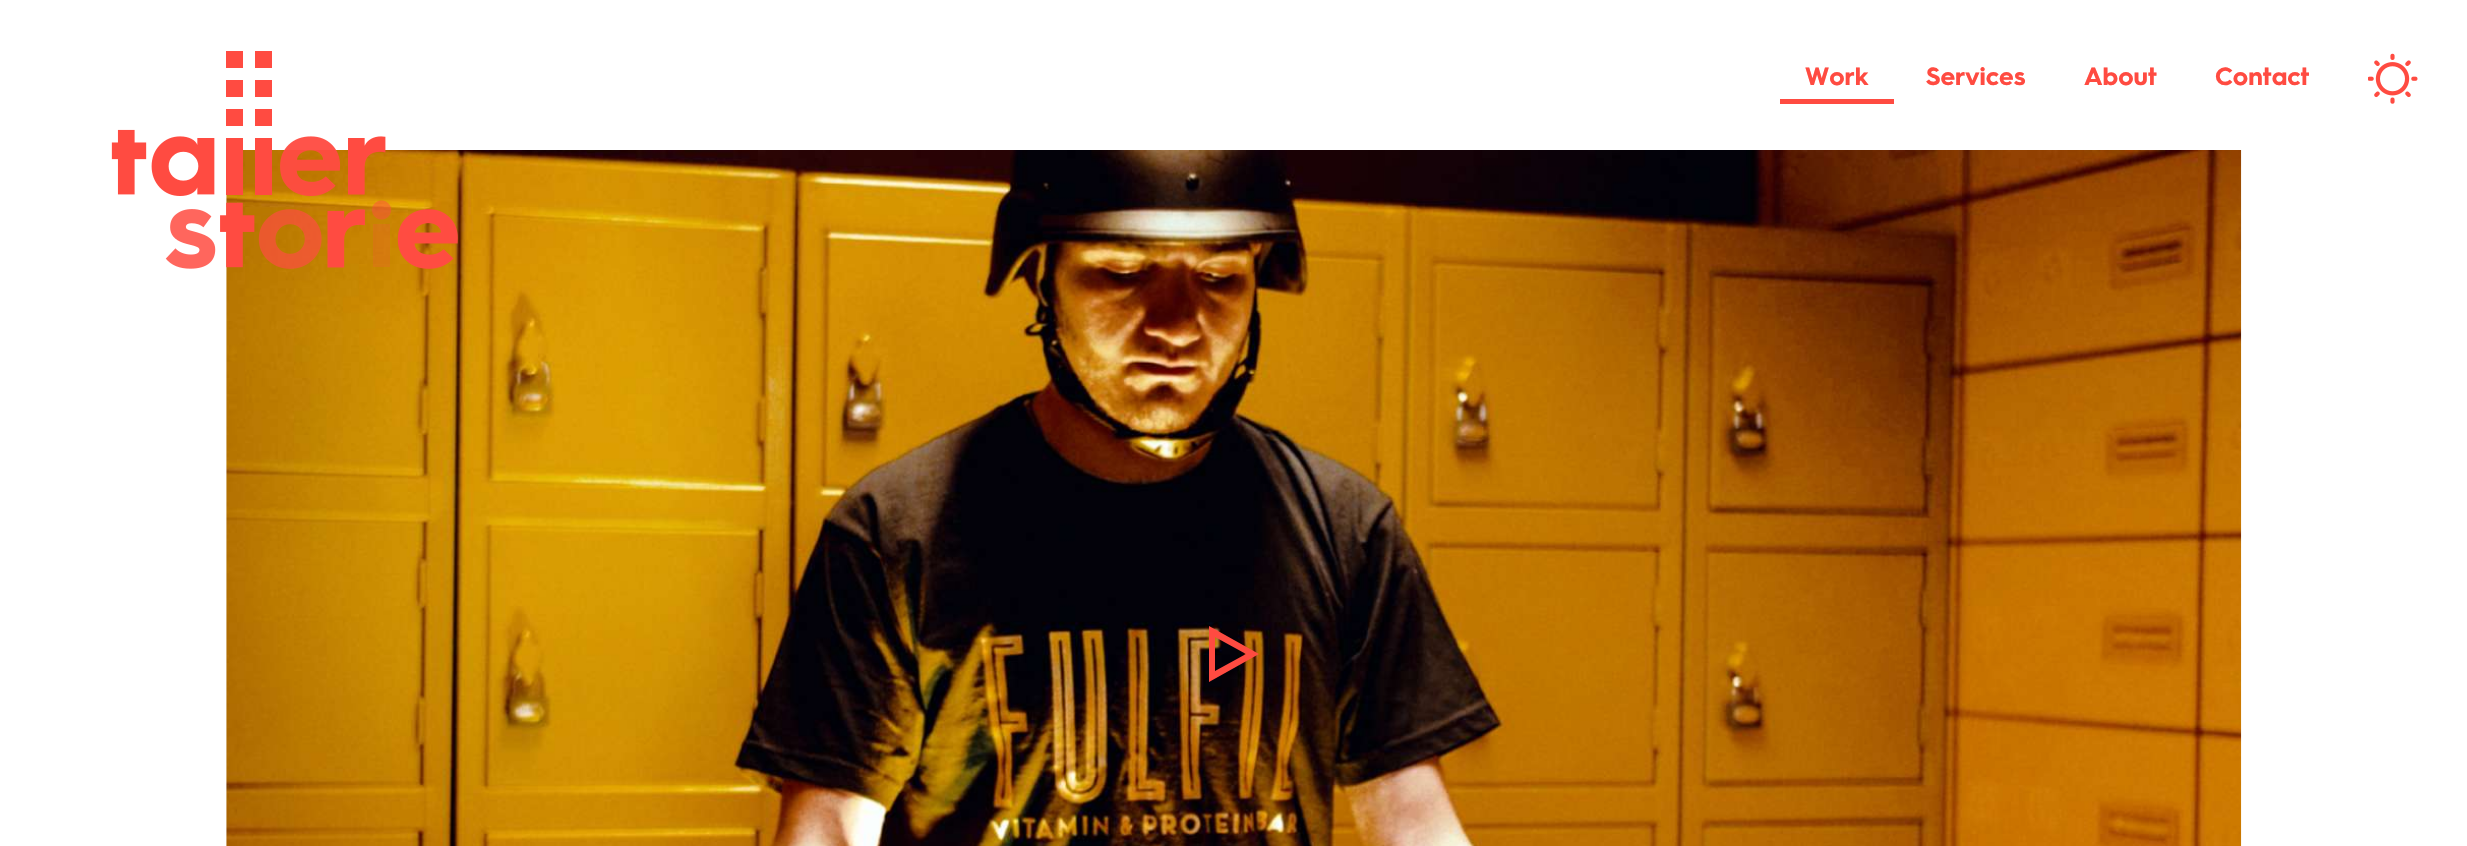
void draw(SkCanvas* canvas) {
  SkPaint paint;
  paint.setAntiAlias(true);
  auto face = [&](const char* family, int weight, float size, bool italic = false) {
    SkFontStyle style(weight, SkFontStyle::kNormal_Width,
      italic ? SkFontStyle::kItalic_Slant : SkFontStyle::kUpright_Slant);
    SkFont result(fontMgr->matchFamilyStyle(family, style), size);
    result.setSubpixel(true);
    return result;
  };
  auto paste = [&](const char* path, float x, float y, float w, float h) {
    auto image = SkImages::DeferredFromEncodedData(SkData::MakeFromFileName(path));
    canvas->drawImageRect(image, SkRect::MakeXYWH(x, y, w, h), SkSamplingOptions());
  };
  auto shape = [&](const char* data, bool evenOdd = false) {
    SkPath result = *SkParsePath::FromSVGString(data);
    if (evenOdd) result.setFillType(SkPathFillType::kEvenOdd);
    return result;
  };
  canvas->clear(0xffffffff);
  paste("img/3.png", 226, 150, 2016, 696);
  paste("img/1.png", 111, 51, 347, 218);
  paint.setColor(0xffff4b41);
  canvas->drawRect(SkRect::MakeXYWH(1780, 99, 114, 5), paint);
  paste("img/2.png", 2368, 53, 50, 51);
  canvas->drawPath(shape("M1215 637L1246 654L1215 671ZM1209 626V682L1259 654Z"), paint);
  auto f0 = face("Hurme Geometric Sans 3", 700, 25);
  {
    const struct { const char* s; float x, y; } items[] = {
      {"Work", 1805, 85},
      {"Services", 1926, 85},
      {"About", 2084, 85},
      {"Contact", 2215, 85},
    };
    for (auto [s, x, y] : items) {
      canvas->drawString(s, x, y, f0, paint);
    }
  }
}
